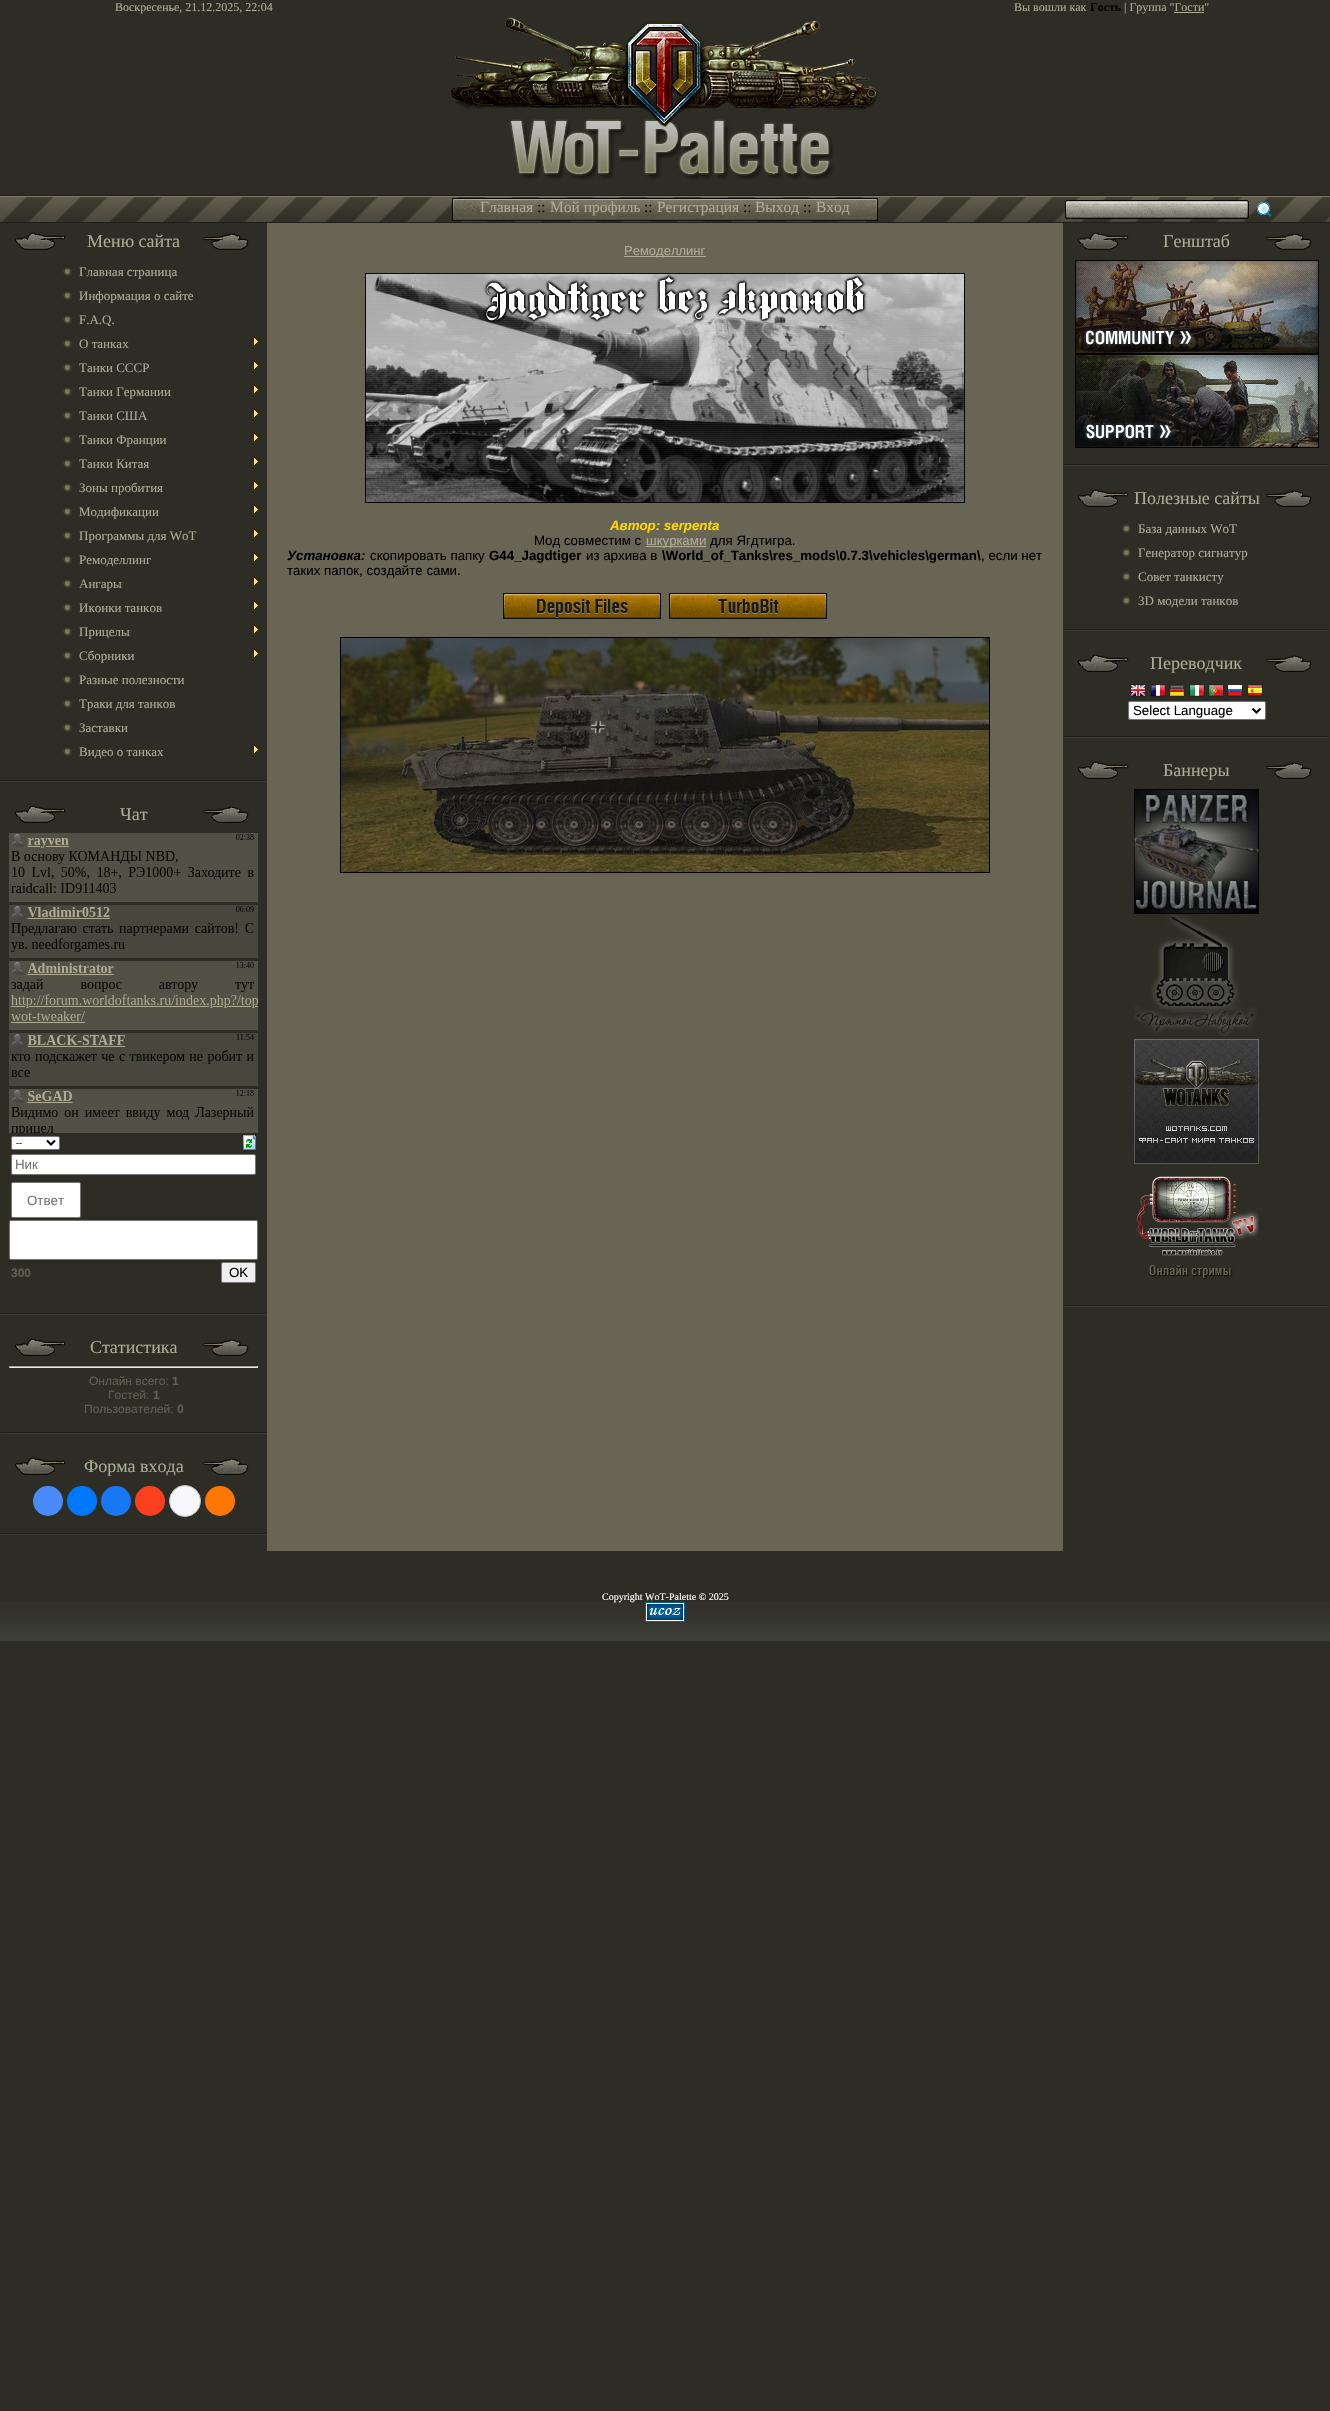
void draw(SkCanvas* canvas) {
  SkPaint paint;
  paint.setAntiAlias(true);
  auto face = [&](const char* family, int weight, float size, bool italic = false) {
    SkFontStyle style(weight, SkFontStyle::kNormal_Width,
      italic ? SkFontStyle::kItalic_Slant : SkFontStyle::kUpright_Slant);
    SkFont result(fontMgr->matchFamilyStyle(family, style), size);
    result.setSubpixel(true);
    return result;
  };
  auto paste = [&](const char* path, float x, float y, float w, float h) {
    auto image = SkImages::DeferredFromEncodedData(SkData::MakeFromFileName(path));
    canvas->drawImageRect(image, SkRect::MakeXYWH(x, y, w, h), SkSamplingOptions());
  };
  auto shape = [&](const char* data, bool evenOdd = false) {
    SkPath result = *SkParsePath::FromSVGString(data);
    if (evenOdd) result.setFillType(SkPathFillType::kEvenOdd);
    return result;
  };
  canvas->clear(0xff2d2d25);
  paint.setColor(0xffaeac96);
  canvas->drawRect(SkRect::MakeXYWH(1174, 12, 30, 1), paint);
  paste("img/1.png", 450, 17, 428, 163);
  paste("img/2.png", 0, 195, 1330, 28);
  paste("img/3.png", 452, 198, 426, 23);
  paste("img/4.png", 1065, 200, 184, 19);
  paste("img/5.png", 1257, 202, 15, 15);
  paste("img/6.png", 14, 232, 235, 18);
  paste("img/7.png", 63, 267, 9, 9);
  paste("img/7.png", 63, 291, 9, 9);
  paste("img/7.png", 63, 315, 9, 9);
  paste("img/7.png", 63, 339, 9, 9);
  paste("img/8.png", 254, 338, 4, 7);
  paste("img/7.png", 63, 363, 9, 9);
  paste("img/8.png", 254, 362, 4, 7);
  paste("img/7.png", 63, 387, 9, 9);
  paste("img/8.png", 254, 386, 4, 7);
  paste("img/7.png", 63, 411, 9, 9);
  paste("img/8.png", 254, 410, 4, 7);
  paste("img/7.png", 63, 435, 9, 9);
  paste("img/8.png", 254, 434, 4, 7);
  paste("img/7.png", 63, 459, 9, 9);
  paste("img/8.png", 254, 458, 4, 7);
  paste("img/7.png", 63, 483, 9, 9);
  paste("img/8.png", 254, 482, 4, 7);
  paste("img/7.png", 63, 507, 9, 9);
  paste("img/8.png", 254, 506, 4, 7);
  paste("img/7.png", 63, 531, 9, 9);
  paste("img/8.png", 254, 530, 4, 7);
  paste("img/7.png", 63, 555, 9, 9);
  paste("img/8.png", 254, 554, 4, 7);
  paste("img/7.png", 63, 579, 9, 9);
  paste("img/8.png", 254, 578, 4, 7);
  paste("img/7.png", 63, 603, 9, 9);
  paste("img/8.png", 254, 602, 4, 7);
  paste("img/7.png", 63, 627, 9, 9);
  paste("img/8.png", 254, 626, 4, 7);
  paste("img/7.png", 63, 651, 9, 9);
  paste("img/8.png", 254, 650, 4, 7);
  paste("img/7.png", 63, 675, 9, 9);
  paste("img/7.png", 63, 699, 9, 9);
  paste("img/7.png", 63, 723, 9, 9);
  paste("img/7.png", 63, 747, 9, 9);
  paste("img/8.png", 254, 746, 4, 7);
  paste("img/9.png", 1, 780, 265, 2);
  paste("img/6.png", 14, 805, 235, 18);
  paste("img/10.png", 9, 833, 249, 300);
  paint.setColor(0xffffffff);
  canvas->drawRoundRect(SkRect::MakeXYWH(11.5f, 1136.5f, 48, 13), 1.5f, 1.5f, paint);
  paint.setStroke(true);
  paint.setStrokeWidth(1);
  paint.setColor(0xff767676);
  canvas->drawRoundRect(SkRect::MakeXYWH(11.5f, 1136.5f, 48, 13), 1.5f, 1.5f, paint);
  paint.setStrokeWidth(2);
  paint.setColor(0xff000000);
  canvas->drawPath(shape("M47 1140.5L51 1144.5L55 1140.5"), paint);
  paste("img/11.png", 243, 1135, 13, 15);
  paint.setStroke(false);
  paint.setColor(0xffffffff);
  canvas->drawRoundRect(SkRect::MakeXYWH(11.5f, 1154.5f, 244, 20), 1.5f, 1.5f, paint);
  paint.setStroke(true);
  paint.setStrokeWidth(1);
  paint.setColor(0xff767676);
  canvas->drawRoundRect(SkRect::MakeXYWH(11.5f, 1154.5f, 244, 20), 1.5f, 1.5f, paint);
  paint.setStroke(false);
  paint.setColor(0xffffffff);
  canvas->drawRoundRect(SkRect::MakeXYWH(11.5f, 1182.5f, 69, 35), 1.5f, 1.5f, paint);
  paint.setStroke(true);
  paint.setColor(0xff767676);
  canvas->drawRoundRect(SkRect::MakeXYWH(11.5f, 1182.5f, 69, 35), 1.5f, 1.5f, paint);
  paint.setStroke(false);
  paint.setColor(0xffffffff);
  canvas->drawRoundRect(SkRect::MakeXYWH(9.5f, 1220.5f, 248, 39), 1.5f, 1.5f, paint);
  paint.setStroke(true);
  paint.setColor(0xff767676);
  canvas->drawRoundRect(SkRect::MakeXYWH(9.5f, 1220.5f, 248, 39), 1.5f, 1.5f, paint);
  paint.setStroke(false);
  paint.setColor(0xffefefef);
  canvas->drawRoundRect(SkRect::MakeXYWH(221.5f, 1262.5f, 34, 20), 1.5f, 1.5f, paint);
  paint.setStroke(true);
  paint.setColor(0xff767676);
  canvas->drawRoundRect(SkRect::MakeXYWH(221.5f, 1262.5f, 34, 20), 1.5f, 1.5f, paint);
  paste("img/9.png", 1, 1313, 265, 2);
  paste("img/6.png", 14, 1338, 235, 18);
  paint.setStroke(false);
  {
    const struct { float x, y, w, h; SkColor color; } items[] = {
      {9, 1366, 249, 1, 0xff9f9f9f},
      {257, 1366, 1, 2, 0xffeeeeee},
      {9, 1367, 249, 1, 0xffeeeeee},
      {9, 1366, 1, 2, 0xff9f9f9f},
    };
    for (auto [x, y, w, h, color] : items) {
      paint.setColor(color);
      canvas->drawRect(SkRect::MakeXYWH(x, y, w, h), paint);
    }
  }
  paste("img/9.png", 1, 1432, 265, 2);
  paste("img/6.png", 14, 1457, 235, 18);
  paint.setColor(0xff498bfa);
  canvas->drawCircle(48, 1501, 15, paint);
  paint.setColor(0xff0077ff);
  canvas->drawCircle(82, 1501, 15, paint);
  paint.setColor(0xff1877f2);
  canvas->drawCircle(116, 1501, 15, paint);
  paint.setColor(0xfffc3f1d);
  canvas->drawCircle(150, 1501, 15, paint);
  paint.setColor(0xfff8f8fc);
  canvas->drawCircle(185, 1501, 15.5f, paint);
  paint.setStroke(true);
  paint.setColor(0xffc4c4c4);
  canvas->drawCircle(185, 1501, 15.5f, paint);
  paint.setStroke(false);
  paint.setColor(0xffff7700);
  canvas->drawCircle(220, 1501, 15, paint);
  paste("img/9.png", 1, 1533, 265, 2);
  paint.setColor(0xff686554);
  canvas->drawRect(SkRect::MakeXYWH(267, 223, 796, 1328), paint);
  paint.setColor(0xffaeac96);
  canvas->drawRect(SkRect::MakeXYWH(624, 256, 82, 1), paint);
  paste("img/12.png", 365, 273, 600, 230);
  canvas->drawRect(SkRect::MakeXYWH(646, 546, 60, 1), paint);
  paste("img/13.png", 503, 593, 158, 26);
  paste("img/14.png", 669, 593, 158, 26);
  paste("img/15.png", 340, 637, 650, 236);
  paste("img/6.png", 1077, 232, 235, 18);
  paste("img/16.png", 1075, 260, 244, 94);
  paste("img/17.png", 1075, 354, 244, 94);
  paste("img/9.png", 1064, 464, 265, 2);
  paste("img/6.png", 1077, 489, 235, 18);
  paste("img/7.png", 1122, 524, 9, 9);
  paste("img/7.png", 1122, 548, 9, 9);
  paste("img/7.png", 1122, 572, 9, 9);
  paste("img/7.png", 1122, 596, 9, 9);
  paste("img/9.png", 1064, 629, 265, 2);
  paste("img/6.png", 1077, 654, 235, 18);
  paste("img/18.png", 1130, 684, 16, 13);
  paste("img/19.png", 1150, 684, 16, 13);
  paste("img/20.png", 1169, 684, 16, 13);
  paste("img/21.png", 1189, 684, 16, 13);
  paste("img/22.png", 1208, 684, 16, 13);
  paste("img/23.png", 1227, 684, 16, 13);
  paste("img/24.png", 1247, 684, 16, 13);
  paint.setColor(0xffffffff);
  canvas->drawRoundRect(SkRect::MakeXYWH(1128.5f, 701.5f, 137, 18), 1.5f, 1.5f, paint);
  paint.setStroke(true);
  paint.setColor(0xff767676);
  canvas->drawRoundRect(SkRect::MakeXYWH(1128.5f, 701.5f, 137, 18), 1.5f, 1.5f, paint);
  paint.setStrokeWidth(2);
  paint.setColor(0xff000000);
  canvas->drawPath(shape("M1252.5 708.5L1256.5 712.5L1260.5 708.5"), paint);
  paste("img/9.png", 1064, 736, 265, 2);
  paste("img/6.png", 1077, 761, 235, 18);
  paste("img/25.png", 1134, 789, 125, 125);
  paste("img/26.png", 1134, 914, 123, 122);
  paste("img/27.png", 1134, 1039, 125, 125);
  paste("img/28.png", 1136, 1176, 123, 104);
  paste("img/9.png", 1064, 1305, 265, 2);
  paste("img/29.png", 0, 1602, 1330, 39);
  auto f0 = face("Liberation Serif", 400, 12);
  paint.setStroke(false);
  paint.setColor(0xffaeac96);
  canvas->drawString("Воскресенье, 21.12.2025, 22:04", 115, 11, f0, paint);
  canvas->drawString("Вы вошли как", 1014, 11, f0, paint);
  auto f1 = face("Liberation Serif", 700, 12);
  paint.setColor(0xff000000);
  canvas->drawString("Гость", 1090, 11, f1, paint);
  paint.setColor(0xffaeac96);
  canvas->drawString("| Группа \"Гости\"", 1124, 11, f0, paint);
  auto f2 = face("Liberation Serif", 400, 15.5f);
  canvas->drawString("Главная", 480, 212, f2, paint);
  paint.setColor(0xff000000);
  canvas->drawString("::", 537, 212, f2, paint);
  paint.setColor(0xffaeac96);
  canvas->drawString("Мой профиль", 550, 212, f2, paint);
  paint.setColor(0xff000000);
  canvas->drawString("::", 644, 212, f2, paint);
  paint.setColor(0xffaeac96);
  canvas->drawString("Регистрация", 657, 212, f2, paint);
  paint.setColor(0xff000000);
  canvas->drawString("::", 743, 212, f2, paint);
  paint.setColor(0xffaeac96);
  canvas->drawString("Выход", 755, 212, f2, paint);
  paint.setColor(0xff000000);
  canvas->drawString("::", 803, 212, f2, paint);
  paint.setColor(0xffaeac96);
  canvas->drawString("Вход", 816, 212, f2, paint);
  auto f3 = face("Liberation Serif", 400, 18);
  canvas->drawString("Меню сайта", 87, 247, f3, paint);
  auto f4 = face("Liberation Serif", 400, 13);
  {
    const struct { const char* s; float x, y; } items[] = {
      {"Главная страница", 79, 276},
      {"Информация о сайте", 79, 300},
      {"F.A.Q.", 79, 324},
      {"О танках", 79, 348},
      {"Танки СССР", 79, 372},
      {"Танки Германии", 79, 396},
      {"Танки США", 79, 420},
      {"Танки Франции", 79, 444},
      {"Танки Китая", 79, 468},
      {"Зоны пробития", 79, 492},
      {"Модификации", 79, 516},
      {"Программы для WoT", 79, 540},
      {"Ремоделлинг", 79, 564},
      {"Ангары", 79, 588},
      {"Иконки танков", 79, 612},
      {"Прицелы", 79, 636},
      {"Сборники", 79, 660},
      {"Разные полезности", 79, 684},
      {"Траки для танков", 79, 708},
      {"Заставки", 79, 732},
      {"Видео о танках", 79, 756},
    };
    for (auto [s, x, y] : items) {
      canvas->drawString(s, x, y, f4, paint);
    }
  }
  canvas->drawString("Чат", 120, 820, f3, paint);
  auto f5 = face("Liberation Sans", 400, 9);
  paint.setColor(0xff000000);
  canvas->drawString("--", 16, 1146, f5, paint);
  auto f6 = face("Liberation Sans", 400, 13.3f);
  paint.setColor(0xff757575);
  canvas->drawString("Ник", 15, 1169, f6, paint);
  canvas->drawString("Ответ", 27, 1205, f6, paint);
  auto f7 = face("Liberation Sans", 700, 12);
  paint.setColor(0xff605f53);
  canvas->drawString("300", 11, 1277, f7, paint);
  paint.setColor(0xff000000);
  canvas->drawString("OK", 229, 1277, f6, paint);
  paint.setColor(0xffaeac96);
  canvas->drawString("Статистика", 90, 1353, f3, paint);
  auto f8 = face("Liberation Sans", 400, 12);
  paint.setColor(0xff605f53);
  canvas->drawString("Онлайн всего:", 89, 1385, f8, paint);
  canvas->drawString("1", 172, 1385, f7, paint);
  canvas->drawString("Гостей:", 108, 1399, f8, paint);
  canvas->drawString("1", 153, 1399, f7, paint);
  canvas->drawString("Пользователей:", 84, 1413, f8, paint);
  canvas->drawString("0", 177, 1413, f7, paint);
  paint.setColor(0xffaeac96);
  canvas->drawString("Форма входа", 84, 1472, f3, paint);
  auto f9 = face("Liberation Sans", 400, 13);
  canvas->drawString("Ремоделлинг", 624, 255, f9, paint);
  auto f10 = face("Liberation Sans", 700, 13.3f, true);
  paint.setColor(0xffffd700);
  canvas->drawString("Автор: serpenta", 610, 530, f10, paint);
  paint.setColor(0xff000000);
  canvas->drawString("Мод совместим с", 534, 545, f6, paint);
  paint.setColor(0xffaeac96);
  canvas->drawString("шкурками", 646, 545, f6, paint);
  paint.setColor(0xff000000);
  canvas->drawString("для Ягдтигра.", 710, 545, f6, paint);
  canvas->drawString("Установка:", 287, 560, f10, paint);
  canvas->drawString("скопировать папку", 370, 560, f6, paint);
  auto f11 = face("Liberation Sans", 700, 13.3f);
  canvas->drawString("G44_Jagdtiger", 489, 560, f11, paint);
  canvas->drawString("из архива в", 586, 560, f6, paint);
  canvas->drawString("\\World_of_Tanks\\res_mods\\0.7.3\\vehicles\\german\\", 662, 560, f11, paint);
  canvas->drawString(", если нет", 981, 560, f6, paint);
  canvas->drawString("таких папок, создайте сами.", 287, 575, f6, paint);
  paint.setColor(0xffaeac96);
  canvas->drawString("Генштаб", 1163, 247, f3, paint);
  canvas->drawString("Полезные сайты", 1134, 504, f3, paint);
  {
    const struct { const char* s; float x, y; } items[] = {
      {"База данных WoT", 1138, 533},
      {"Генератор сигнатур", 1138, 557},
      {"Совет танкисту", 1138, 581},
      {"3D модели танков", 1138, 605},
    };
    for (auto [s, x, y] : items) {
      canvas->drawString(s, x, y, f4, paint);
    }
  }
  canvas->drawString("Переводчик", 1150, 669, f3, paint);
  paint.setColor(0xff000000);
  canvas->drawString("Select Language", 1133, 715, f6, paint);
  paint.setColor(0xffaeac96);
  canvas->drawString("Баннеры", 1163, 776, f3, paint);
  auto f12 = face("Liberation Serif", 400, 10);
  paint.setColor(0xffffffff);
  canvas->drawString("Copyright WoT-Palette © 2025", 602, 1600, f12, paint);
  paste("img/30.png", 645, 1602, 40, 20);
}
